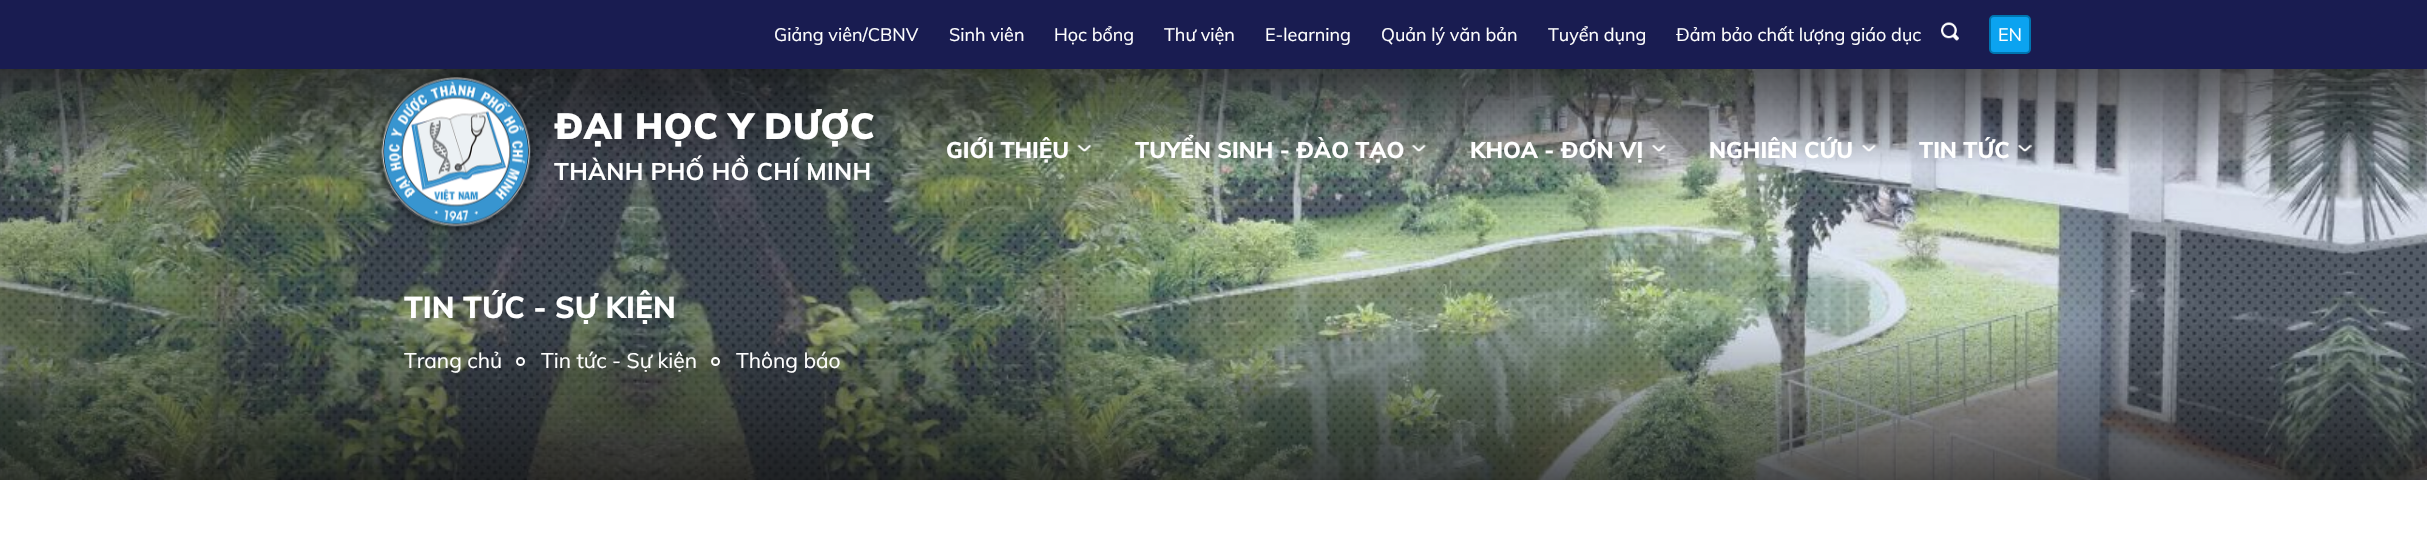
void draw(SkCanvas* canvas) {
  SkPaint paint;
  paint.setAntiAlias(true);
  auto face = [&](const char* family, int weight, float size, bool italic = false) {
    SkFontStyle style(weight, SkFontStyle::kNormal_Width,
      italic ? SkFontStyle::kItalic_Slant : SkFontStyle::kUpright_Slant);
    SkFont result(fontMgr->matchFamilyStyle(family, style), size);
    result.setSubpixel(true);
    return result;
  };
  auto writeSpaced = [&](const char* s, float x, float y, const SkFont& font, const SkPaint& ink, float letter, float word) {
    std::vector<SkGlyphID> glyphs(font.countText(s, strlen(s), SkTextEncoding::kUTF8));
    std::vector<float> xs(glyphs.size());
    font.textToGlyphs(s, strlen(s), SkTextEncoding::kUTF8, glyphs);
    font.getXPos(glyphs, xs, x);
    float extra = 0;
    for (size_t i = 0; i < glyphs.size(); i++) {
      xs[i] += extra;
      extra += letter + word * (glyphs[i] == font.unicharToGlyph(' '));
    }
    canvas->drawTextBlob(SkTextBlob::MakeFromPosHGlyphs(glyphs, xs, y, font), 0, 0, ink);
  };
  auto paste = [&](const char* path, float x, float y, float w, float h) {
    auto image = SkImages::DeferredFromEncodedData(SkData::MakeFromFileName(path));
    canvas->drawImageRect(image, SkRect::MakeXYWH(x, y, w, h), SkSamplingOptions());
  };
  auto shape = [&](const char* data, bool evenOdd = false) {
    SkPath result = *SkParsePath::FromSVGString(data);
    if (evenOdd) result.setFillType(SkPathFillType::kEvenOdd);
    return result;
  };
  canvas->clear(0xffffffff);
  paint.setColor(0xff191c51);
  canvas->drawRect(SkRect::MakeXYWH(0, 0, 2427, 69), paint);
  paste("img/1.png", 1941, 22, 18, 19);
  paint.setColor(0xff0ba3f0);
  canvas->drawRoundRect(SkRect::MakeXYWH(1990, 16, 40, 37), 4, 4, paint);
  paint.setStroke(true);
  paint.setStrokeWidth(2);
  paint.setColor(0xff0075b0);
  canvas->drawRoundRect(SkRect::MakeXYWH(1990, 16, 40, 37), 4, 4, paint);
  paste("img/8.png", 0, 69, 2427, 411);
  canvas->save();
  canvas->clipPath(shape("M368 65H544V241H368ZM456 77C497.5 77 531 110.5 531 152C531 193.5 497.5 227 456 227C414.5 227 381 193.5 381 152C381 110.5 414.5 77 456 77Z", true), true);
  paint.setStroke(false);
  paint.setColor(0x99000000);
  paint.setMaskFilter(SkMaskFilter::MakeBlur(kNormal_SkBlurStyle, 4));
  canvas->drawRoundRect(SkRect::MakeXYWH(381, 78, 150, 150), 75, 75, paint);
  paint.setMaskFilter(nullptr);
  canvas->restore();
  paste("img/2.png", 382, 77, 149, 149);
  paste("img/3.png", 1077, 144, 14, 8);
  paste("img/4.png", 1411, 144, 15, 8);
  paste("img/5.png", 1652, 144, 14, 8);
  paste("img/6.png", 1862, 144, 14, 8);
  paste("img/7.png", 2018, 144, 14, 8);
  paint.setStroke(true);
  paint.setColor(0xffffffff);
  canvas->drawCircle(520.5f, 361.5f, 3.5f, paint);
  canvas->drawCircle(715.5f, 361.5f, 3.5f, paint);
  auto f0 = face("Muli", 400, 18);
  paint.setStroke(false);
  {
    const struct { const char* s; float x, y; } items[] = {
      {"Giảng viên/CBNV", 774, 41},
      {"Sinh viên", 949, 41},
      {"Học bổng", 1054, 41},
      {"Thư viện", 1164, 41},
      {"E-learning", 1265, 41},
      {"Quản lý văn bản", 1381, 41},
      {"Tuyển dụng", 1548, 41},
      {"Đảm bảo chất lượng giáo dục", 1676, 41},
      {"EN", 1998, 41},
    };
    for (auto [s, x, y] : items) {
      canvas->drawString(s, x, y, f0, paint);
    }
  }
  auto f1 = face("Muli", 900, 36);
  writeSpaced("ĐẠI HỌC Y DƯỢC", 554, 139, f1, paint, 0.5f, 0);
  auto f2 = face("Muli", 700, 24);
  writeSpaced("THÀNH PHỐ HỒ CHÍ MINH", 554, 180, f2, paint, 0.3f, 0);
  auto f3 = face("Muli", 800, 22.5f);
  {
    const struct { const char* s; float x, y; } items[] = {
      {"GIỚI THIỆU", 946, 158},
      {"TUYỂN SINH - ĐÀO TẠO", 1135, 158},
      {"KHOA - ĐƠN VỊ", 1470, 158},
      {"NGHIÊN CỨU", 1709, 158},
      {"TIN TỨC", 1919, 158},
    };
    for (auto [s, x, y] : items) {
      canvas->drawString(s, x, y, f3, paint);
    }
  }
  auto f4 = face("Muli", 800, 30);
  canvas->drawString("TIN TỨC - SỰ KIỆN", 404, 318, f4, paint);
  auto f5 = face("Muli", 400, 21);
  {
    const struct { const char* s; float x, y; } items[] = {
      {"Trang chủ", 404, 368},
      {"Tin tức - Sự kiện", 541, 368},
      {"Thông báo", 736, 368},
    };
    for (auto [s, x, y] : items) {
      canvas->drawString(s, x, y, f5, paint);
    }
  }
}
